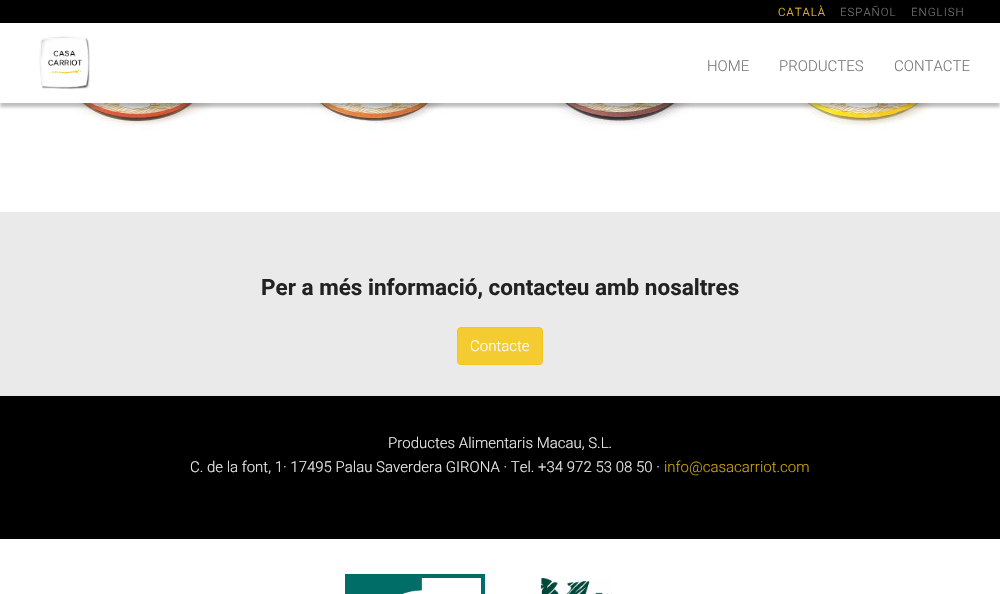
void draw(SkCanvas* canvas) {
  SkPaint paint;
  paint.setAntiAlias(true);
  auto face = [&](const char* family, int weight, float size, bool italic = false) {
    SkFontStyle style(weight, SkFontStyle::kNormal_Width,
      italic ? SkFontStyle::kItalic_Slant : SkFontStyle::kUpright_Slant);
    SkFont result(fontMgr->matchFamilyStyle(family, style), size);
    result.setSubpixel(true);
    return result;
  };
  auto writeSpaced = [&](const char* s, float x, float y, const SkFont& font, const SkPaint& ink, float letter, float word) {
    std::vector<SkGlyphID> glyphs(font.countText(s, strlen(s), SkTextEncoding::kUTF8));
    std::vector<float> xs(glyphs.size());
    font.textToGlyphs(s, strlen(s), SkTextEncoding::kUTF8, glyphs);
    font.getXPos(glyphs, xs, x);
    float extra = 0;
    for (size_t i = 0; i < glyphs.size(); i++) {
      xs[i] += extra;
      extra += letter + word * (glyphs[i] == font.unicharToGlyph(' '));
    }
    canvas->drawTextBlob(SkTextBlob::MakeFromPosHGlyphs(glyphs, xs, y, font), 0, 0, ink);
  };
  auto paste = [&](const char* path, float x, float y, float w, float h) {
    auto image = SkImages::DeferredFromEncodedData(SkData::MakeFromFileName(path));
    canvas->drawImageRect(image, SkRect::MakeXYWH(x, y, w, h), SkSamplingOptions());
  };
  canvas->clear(0xffffffff);
  paste("img/2.png", 52, 103, 167, 28);
  paste("img/3.png", 294, 103, 169, 28);
  paste("img/4.png", 536, 103, 171, 28);
  paste("img/5.png", 780, 103, 167, 28);
  paint.setColor(0x40000000);
  paint.setMaskFilter(SkMaskFilter::MakeBlur(kNormal_SkBlurStyle, 1.5f));
  canvas->drawRect(SkRect::MakeXYWH(0, 4, 1000, 103), paint);
  paint.setMaskFilter(nullptr);
  paint.setColor(0xffffffff);
  canvas->drawRect(SkRect::MakeXYWH(0, 23, 1000, 80), paint);
  paint.setColor(0xff000000);
  canvas->drawRect(SkRect::MakeXYWH(0, 0, 1000, 23), paint);
  paste("img/1.png", 39, 36, 51, 54);
  paint.setColor(0xffeaeaea);
  canvas->drawRect(SkRect::MakeXYWH(0, 212, 1000, 183), paint);
  paint.setColor(0xfff5cb32);
  canvas->drawRoundRect(SkRect::MakeXYWH(457.5f, 327.5f, 85, 37), 3.5f, 3.5f, paint);
  paint.setStroke(true);
  paint.setStrokeWidth(1);
  paint.setColor(0xfff4c51a);
  canvas->drawRoundRect(SkRect::MakeXYWH(457.5f, 327.5f, 85, 37), 3.5f, 3.5f, paint);
  paint.setStroke(false);
  paint.setColor(0xff000000);
  canvas->drawRect(SkRect::MakeXYWH(0, 396, 1000, 143), paint);
  paint.setColor(0xffe5e5e5);
  canvas->drawRect(SkRect::MakeXYWH(0, 395, 1000, 1), paint);
  paste("img/6.png", 345, 574, 140, 20);
  paste("img/7.png", 540, 578, 72, 16);
  auto f0 = face("Roboto", 300, 11.5f);
  paint.setColor(0xfff5cb32);
  writeSpaced("CATALÀ", 778, 16, f0, paint, 1, 0);
  paint.setColor(0xff777777);
  writeSpaced("ESPAÑOL", 840, 16, f0, paint, 1, 0);
  writeSpaced("ENGLISH", 911, 16, f0, paint, 1, 0);
  auto f1 = face("Roboto", 300, 15);
  {
    const struct { const char* s; float x, y; } items[] = {
      {"HOME", 707, 71},
      {"PRODUCTES", 779, 71},
      {"CONTACTE", 894, 71},
    };
    for (auto [s, x, y] : items) {
      canvas->drawString(s, x, y, f1, paint);
    }
  }
  auto f2 = face("Roboto", 700, 22.5f);
  paint.setColor(0xff222222);
  canvas->drawString("Per a més informació, contacteu amb nosaltres", 261, 295, f2, paint);
  paint.setColor(0xffffffff);
  canvas->drawString("Contacte", 470, 351, f1, paint);
  paint.setColor(0xffeeeeee);
  canvas->drawString("Productes Alimentaris Macau, S.L.", 388, 448, f1, paint);
  canvas->drawString("C. de la font, 1· 17495 Palau Saverdera GIRONA · Tel. +34 972 53 08 50 ·", 190, 472, f1, paint);
  paint.setColor(0xffd0a60a);
  canvas->drawString("info@casacarriot.com", 664, 472, f1, paint);
}
